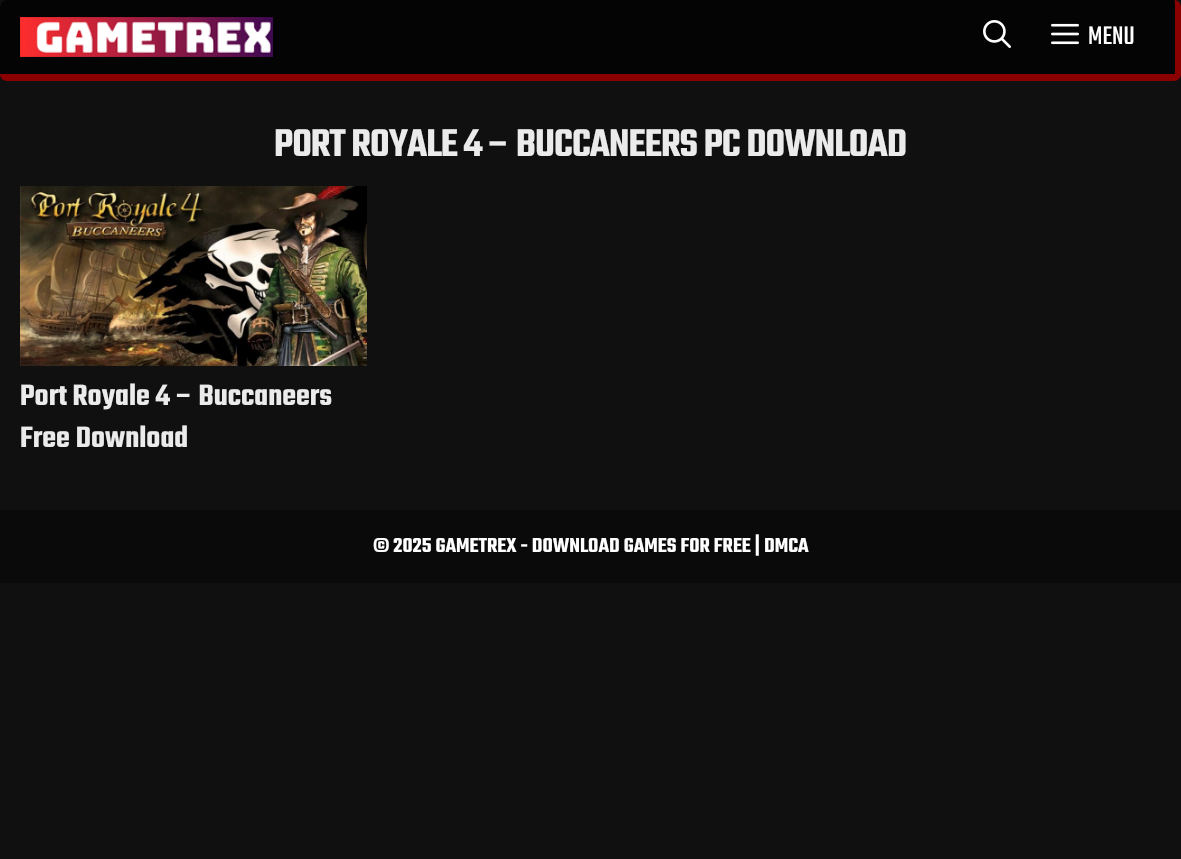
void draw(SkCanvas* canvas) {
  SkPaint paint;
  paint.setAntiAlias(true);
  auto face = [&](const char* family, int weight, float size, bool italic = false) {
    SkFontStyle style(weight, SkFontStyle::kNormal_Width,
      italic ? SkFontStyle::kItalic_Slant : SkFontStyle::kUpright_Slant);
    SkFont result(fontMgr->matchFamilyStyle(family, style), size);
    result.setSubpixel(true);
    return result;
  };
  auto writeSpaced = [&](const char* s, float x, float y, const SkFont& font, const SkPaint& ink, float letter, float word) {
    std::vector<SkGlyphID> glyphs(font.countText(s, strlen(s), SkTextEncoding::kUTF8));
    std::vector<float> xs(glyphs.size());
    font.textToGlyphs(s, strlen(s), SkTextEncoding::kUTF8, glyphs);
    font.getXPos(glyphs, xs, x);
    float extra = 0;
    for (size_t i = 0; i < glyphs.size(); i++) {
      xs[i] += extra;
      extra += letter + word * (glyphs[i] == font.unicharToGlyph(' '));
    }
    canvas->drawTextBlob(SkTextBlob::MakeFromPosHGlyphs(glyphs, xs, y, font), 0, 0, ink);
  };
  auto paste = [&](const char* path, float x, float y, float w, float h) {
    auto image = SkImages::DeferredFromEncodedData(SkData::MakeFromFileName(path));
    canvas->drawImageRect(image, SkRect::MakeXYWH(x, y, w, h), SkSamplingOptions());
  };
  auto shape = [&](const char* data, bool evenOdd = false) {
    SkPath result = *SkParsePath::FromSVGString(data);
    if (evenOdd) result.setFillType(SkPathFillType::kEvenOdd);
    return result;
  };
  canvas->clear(0xff101010);
  paint.setColor(0xff040404);
  canvas->drawRoundRect(SkRect::MakeXYWH(0, 0, 1181, 81), 7, 7, paint);
  paint.setColor(0xff8b0000);
  canvas->drawPath(shape("M7 0H1174C1178 0 1181 3 1181 7V74C1181 78 1178 81 1174 81H7C3 81 0 78 0 74V7C0 3 3 0 7 0ZM7 0H1174C1175 0 1175 3 1175 7V74H0V7C0 3 3 0 7 0Z", true), paint);
  paste("img/1.png", 20, 17, 253, 40);
  paste("img/2.png", 983, 20, 28, 28);
  paste("img/3.png", 1051, 23, 28, 22);
  paste("img/4.png", 20, 186, 347, 180);
  paint.setColor(0xff0a0a0a);
  canvas->drawRect(SkRect::MakeXYWH(0, 510, 1181, 73), paint);
  auto f0 = face("Teko", 400, 28);
  paint.setColor(0xffffffff);
  canvas->drawString("MENU", 1088, 44, f0, paint);
  auto f1 = face("Teko", 600, 42);
  paint.setColor(0xffebebeb);
  writeSpaced("PORT ROYALE 4 – BUCCANEERS PC DOWNLOAD", 274, 156, f1, paint, -1, 0);
  auto f2 = face("Teko", 600, 32);
  canvas->drawString("Port Royale 4 – Buccaneers", 20, 405, f2, paint);
  canvas->drawString("Free Download", 20, 447, f2, paint);
  auto f3 = face("Teko", 600, 22);
  paint.setColor(0xffffffff);
  canvas->drawString("© 2025 GAMETREX - DOWNLOAD GAMES FOR FREE | DMCA", 373, 552, f3, paint);
}
